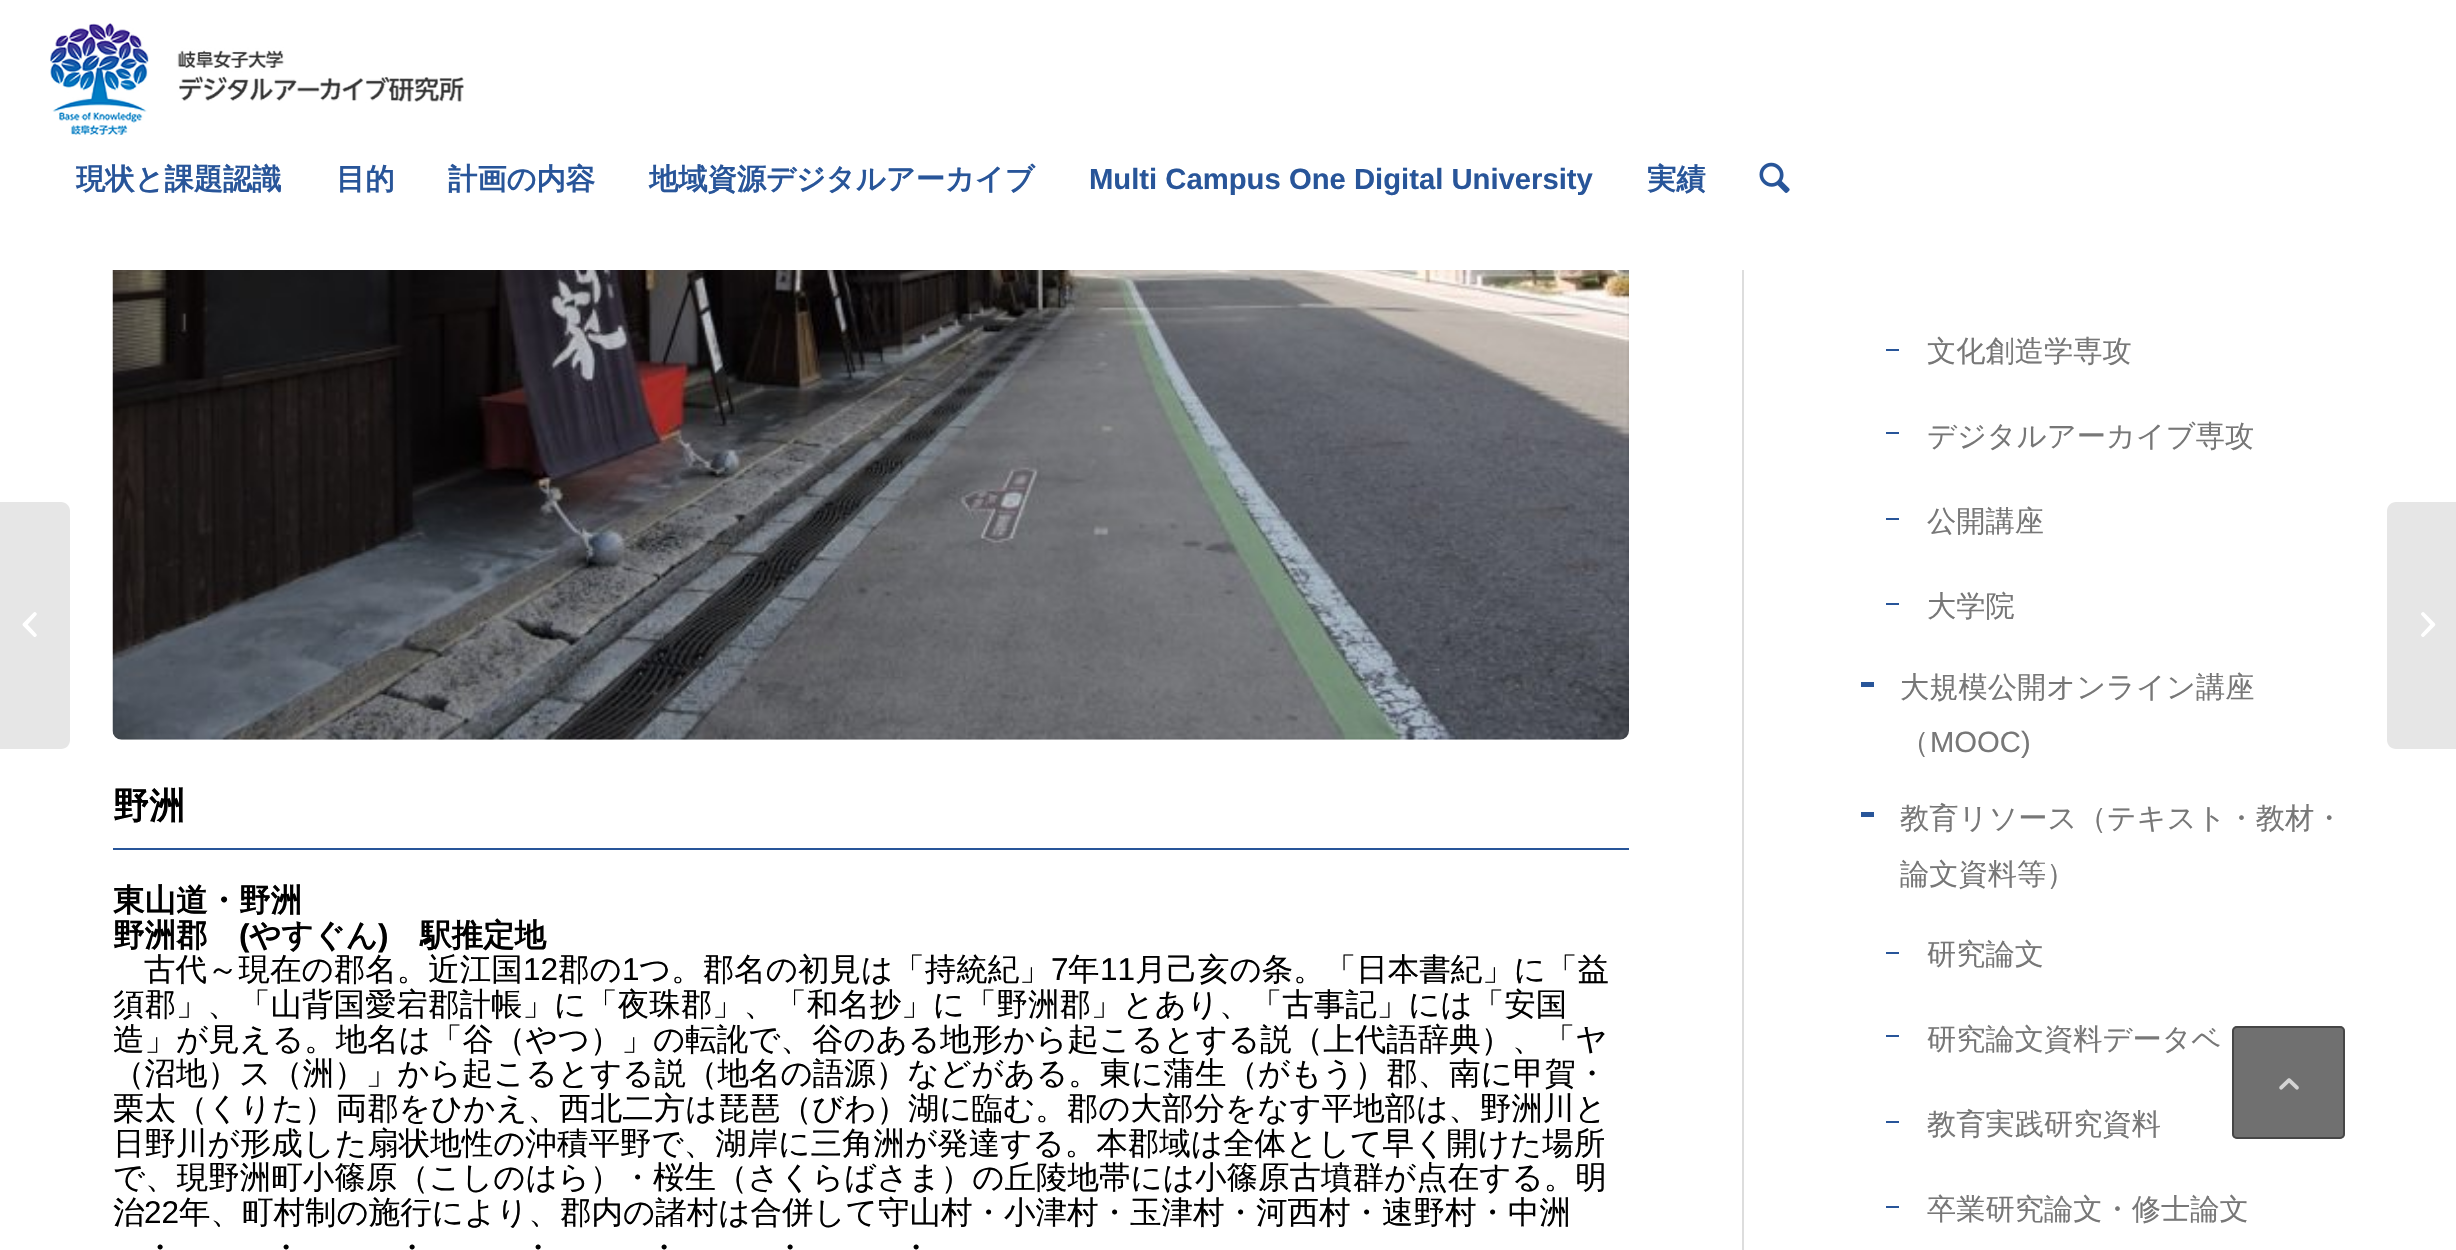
void draw(SkCanvas* canvas) {
  SkPaint paint;
  paint.setAntiAlias(true);
  auto face = [&](const char* family, int weight, float size, bool italic = false) {
    SkFontStyle style(weight, SkFontStyle::kNormal_Width,
      italic ? SkFontStyle::kItalic_Slant : SkFontStyle::kUpright_Slant);
    SkFont result(fontMgr->matchFamilyStyle(family, style), size);
    result.setSubpixel(true);
    return result;
  };
  auto paste = [&](const char* path, float x, float y, float w, float h) {
    auto image = SkImages::DeferredFromEncodedData(SkData::MakeFromFileName(path));
    canvas->drawImageRect(image, SkRect::MakeXYWH(x, y, w, h), SkSamplingOptions());
  };
  auto shape = [&](const char* data, bool evenOdd = false) {
    SkPath result = *SkParsePath::FromSVGString(data);
    if (evenOdd) result.setFillType(SkPathFillType::kEvenOdd);
    return result;
  };
  canvas->clear(0xffffffff);
  paste("img/1.png", 50, 23, 414, 112);
  paste("img/2.png", 1759, 162, 31, 31);
  paint.setColor(0xffe6e6e6);
  canvas->drawPath(shape("M0 502H61C66 502 70 506 70 511V740C70 745 66 749 61 749H0Z"), paint);
  paste("img/3.png", 22, 612, 15, 25);
  paint.setColor(0xffdddddd);
  canvas->drawRect(SkRect::MakeXYWH(1742, 270, 2, 980), paint);
  paste("img/4.png", 112, 270, 1517, 470);
  {
    const struct { float x, y, w, h; SkColor color; } items[] = {
      {113, 848, 1516, 2, 0xff285599},
      {1886, 349, 13, 2, 0xff285599},
      {1886, 432, 13, 2, 0xff285599},
      {1886, 518, 13, 2, 0xff285599},
      {1886, 603, 13, 2, 0xff285599},
      {1861, 682, 13, 5, 0xff285599},
      {1861, 812, 13, 5, 0xff285599},
      {1886, 952, 13, 2, 0xff285599},
      {1886, 1035, 13, 2, 0xff285599},
      {1886, 1121, 13, 2, 0xff285599},
      {1886, 1206, 13, 2, 0xff285599},
    };
    for (auto [x, y, w, h, color] : items) {
      paint.setColor(color);
      canvas->drawRect(SkRect::MakeXYWH(x, y, w, h), paint);
    }
  }
  paint.setColor(0xffe6e6e6);
  canvas->drawPath(shape("M2396 502H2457V749H2396C2391 749 2387 745 2387 740V511C2387 506 2391 502 2396 502Z"), paint);
  paste("img/5.png", 2421, 612, 15, 25);
  paint.setColor(0xb3333333);
  canvas->drawRoundRect(SkRect::MakeXYWH(2232, 1026, 113, 113), 5, 5, paint);
  paint.setStroke(true);
  paint.setStrokeWidth(2);
  canvas->drawRoundRect(SkRect::MakeXYWH(2233, 1027, 111, 111), 4, 4, paint);
  paste("img/6.png", 2279, 1078, 20, 12);
  auto f0 = face("WenQuanYi Zen Hei", 700, 29.25f);
  paint.setStroke(false);
  paint.setColor(0xff285599);
  {
    const struct { const char* s; float x, y; } items[] = {
      {"現状と課題認識", 76, 189},
      {"目的", 336, 189},
      {"計画の内容", 448, 189},
      {"地域資源デジタルアーカイブ", 649, 189},
    };
    for (auto [s, x, y] : items) {
      canvas->drawString(s, x, y, f0, paint);
    }
  }
  auto f1 = face("Liberation Sans", 700, 29.25f);
  canvas->drawString("Multi Campus One Digital University", 1089, 189, f1, paint);
  canvas->drawString("実績", 1647, 189, f0, paint);
  auto f2 = face("WenQuanYi Zen Hei", 700, 36);
  paint.setColor(0xff000000);
  canvas->drawString("野洲", 113, 818, f2, paint);
  auto f3 = face("WenQuanYi Zen Hei", 700, 31.5f);
  canvas->drawString("東山道・野洲", 113, 911, f3, paint);
  canvas->drawString("野洲郡", 113, 946, f3, paint);
  auto f4 = face("Liberation Sans", 700, 31.5f);
  canvas->drawString("(", 239, 946, f4, paint);
  canvas->drawString("やすぐん", 249, 946, f3, paint);
  canvas->drawString(")", 378, 946, f4, paint);
  canvas->drawString("駅推定地", 420, 946, f3, paint);
  auto f5 = face("WenQuanYi Zen Hei", 500, 31.5f);
  canvas->drawString("古代～現在の郡名。近江国", 144, 980, f5, paint);
  auto f6 = face("Liberation Sans", 400, 31.5f);
  canvas->drawString("12", 523, 980, f6, paint);
  canvas->drawString("郡の", 558, 980, f5, paint);
  canvas->drawString("1", 622, 980, f6, paint);
  canvas->drawString("つ。郡名の初見は「持統紀」", 639, 980, f5, paint);
  canvas->drawString("7", 1051, 980, f6, paint);
  canvas->drawString("年", 1068, 980, f5, paint);
  canvas->drawString("11", 1100, 980, f6, paint);
  {
    const struct { const char* s; float x, y; } items[] = {
      {"月己亥の条。「日本書紀」に「益", 1135, 980},
      {"須郡」、「山背国愛宕郡計帳」に「夜珠郡」、「和名抄」に「野洲郡」とあり、「古事記」には「安国", 113, 1015},
      {"造」が見える。地名は「谷（やつ）」の転訛で、谷のある地形から起こるとする説（上代語辞典）、「ヤ", 113, 1050},
      {"（沼地）ス（洲）」から起こるとする説（地名の語源）などがある。東に蒲生（がもう）郡、南に甲賀・", 113, 1084},
      {"栗太（くりた）両郡をひかえ、西北二方は琵琶（びわ）湖に臨む。郡の大部分をなす平地部は、野洲川と", 113, 1119},
      {"日野川が形成した扇状地性の沖積平野で、湖岸に三角洲が発達する。本郡域は全体として早く開けた場所", 113, 1154},
      {"で、現野洲町小篠原（こしのはら）・桜生（さくらばさま）の丘陵地帯には小篠原古墳群が点在する。明", 113, 1188},
      {"治", 113, 1223},
    };
    for (auto [s, x, y] : items) {
      canvas->drawString(s, x, y, f5, paint);
    }
  }
  canvas->drawString("22", 144, 1223, f6, paint);
  {
    const struct { const char* s; float x, y; } items[] = {
      {"年、町村制の施行により、郡内の諸村は合併して守山村・小津村・玉津村・河西村・速野村・中洲", 179, 1223},
      {"・", 144, 1258},
      {"・", 270, 1258},
      {"・", 396, 1258},
      {"・", 522, 1258},
      {"・", 648, 1258},
      {"・", 774, 1258},
      {"・", 900, 1258},
    };
    for (auto [s, x, y] : items) {
      canvas->drawString(s, x, y, f5, paint);
    }
  }
  auto f7 = face("WenQuanYi Zen Hei", 500, 29.25f);
  paint.setColor(0xff777777);
  {
    const struct { const char* s; float x, y; } items[] = {
      {"文化創造学専攻", 1927, 361},
      {"デジタルアーカイブ専攻", 1927, 446},
      {"公開講座", 1927, 531},
      {"大学院", 1927, 616},
      {"大規模公開オンライン講座", 1900, 697},
      {"（", 1900, 752},
    };
    for (auto [s, x, y] : items) {
      canvas->drawString(s, x, y, f7, paint);
    }
  }
  auto f8 = face("Liberation Sans", 400, 29.25f);
  canvas->drawString("MOOC)", 1930, 752, f8, paint);
  {
    const struct { const char* s; float x, y; } items[] = {
      {"教育リソース（テキスト・教材・", 1900, 828},
      {"論文資料等）", 1900, 884},
      {"研究論文", 1927, 964},
      {"研究論文資料データベ", 1927, 1049},
      {"教育実践研究資料", 1927, 1134},
      {"卒業研究論文・修士論文", 1927, 1219},
    };
    for (auto [s, x, y] : items) {
      canvas->drawString(s, x, y, f7, paint);
    }
  }
}
